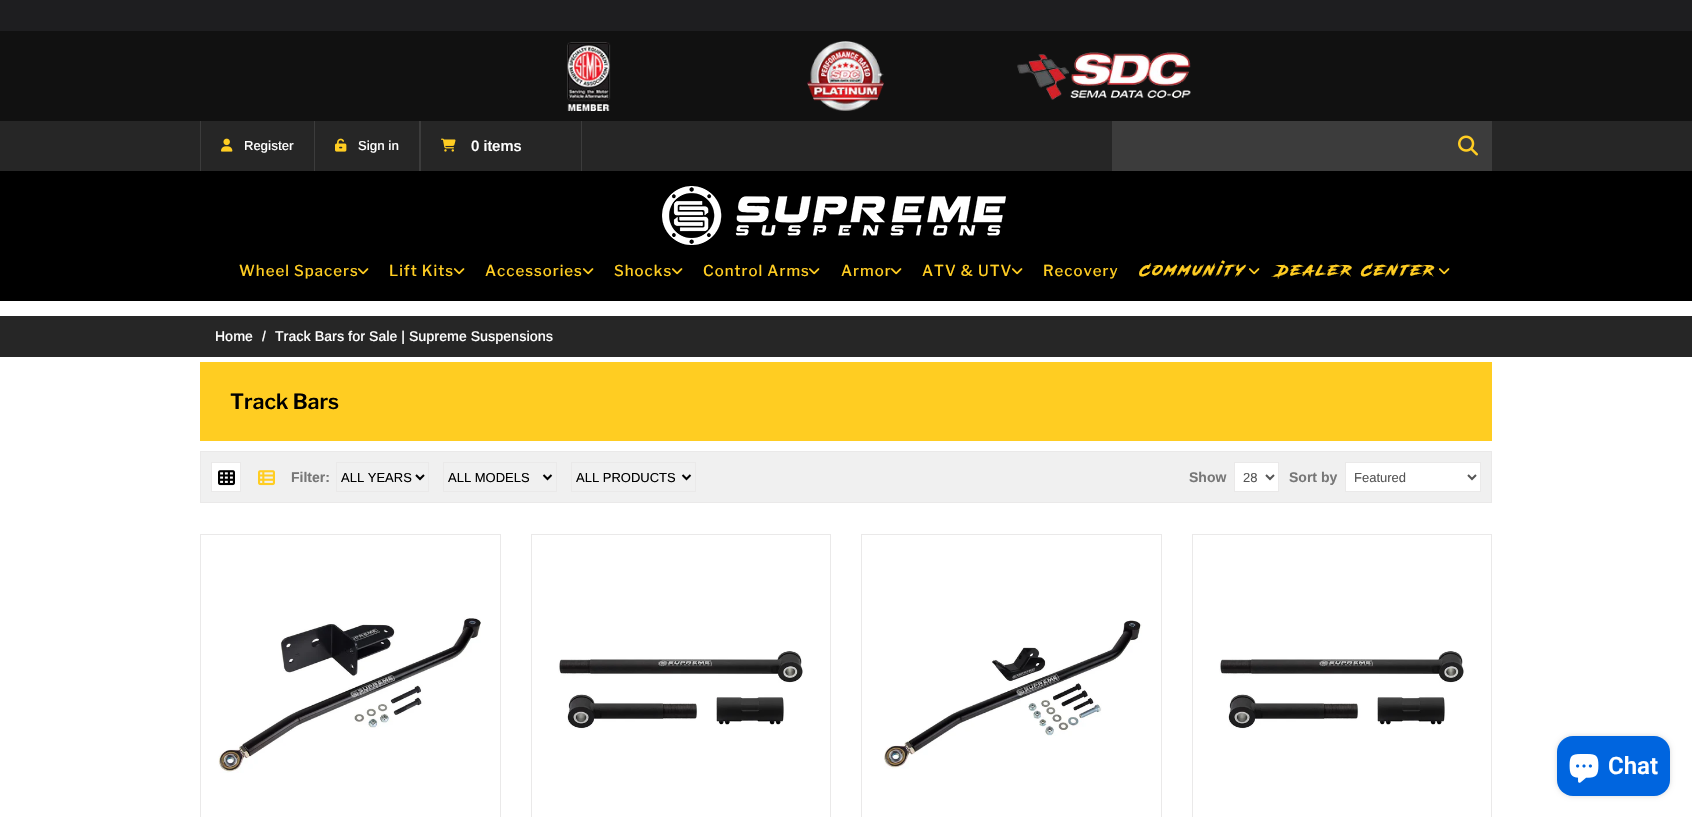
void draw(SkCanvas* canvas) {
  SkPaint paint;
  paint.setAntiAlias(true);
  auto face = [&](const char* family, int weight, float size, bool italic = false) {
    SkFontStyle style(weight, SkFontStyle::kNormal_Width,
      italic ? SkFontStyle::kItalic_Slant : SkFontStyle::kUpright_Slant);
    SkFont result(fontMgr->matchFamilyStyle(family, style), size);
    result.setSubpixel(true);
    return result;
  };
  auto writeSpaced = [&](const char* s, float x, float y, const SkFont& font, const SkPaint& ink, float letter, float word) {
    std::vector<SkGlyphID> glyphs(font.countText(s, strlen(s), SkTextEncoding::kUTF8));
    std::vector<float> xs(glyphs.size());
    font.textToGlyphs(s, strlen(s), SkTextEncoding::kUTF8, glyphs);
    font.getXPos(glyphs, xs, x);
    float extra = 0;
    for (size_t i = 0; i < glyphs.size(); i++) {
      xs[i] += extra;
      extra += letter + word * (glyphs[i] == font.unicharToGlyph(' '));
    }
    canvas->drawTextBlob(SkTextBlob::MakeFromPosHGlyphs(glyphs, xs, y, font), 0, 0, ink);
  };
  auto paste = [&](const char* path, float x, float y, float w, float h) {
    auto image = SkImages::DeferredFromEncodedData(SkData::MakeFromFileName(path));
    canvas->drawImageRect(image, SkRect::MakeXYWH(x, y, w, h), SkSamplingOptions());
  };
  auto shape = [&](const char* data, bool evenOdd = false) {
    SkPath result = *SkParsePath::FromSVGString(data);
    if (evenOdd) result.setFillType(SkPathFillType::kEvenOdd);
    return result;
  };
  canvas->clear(0xffffffff);
  {
    const struct { float x, y, w, h; SkColor color; } items[] = {
      {0, 171, 1692, 130, 0xff000000},
      {0, 0, 1692, 31, 0xff1e1e20},
      {0, 31, 1692, 90, 0xff111111},
    };
    for (auto [x, y, w, h, color] : items) {
      paint.setColor(color);
      canvas->drawRect(SkRect::MakeXYWH(x, y, w, h), paint);
    }
  }
  paste("img/1.png", 567, 42, 44, 69);
  paste("img/2.png", 807, 41, 77, 70);
  paste("img/3.png", 1017, 52, 174, 48);
  {
    const struct { float x, y, w, h; SkColor color; } items[] = {
      {0, 121, 1692, 50, 0xff262626},
      {200, 121, 1, 50, 0xff3c3c3c},
      {314, 121, 1, 50, 0xff3c3c3c},
    };
    for (auto [x, y, w, h, color] : items) {
      paint.setColor(color);
      canvas->drawRect(SkRect::MakeXYWH(x, y, w, h), paint);
    }
  }
  paste("img/4.png", 221, 138, 12, 14);
  paste("img/5.png", 335, 138, 12, 14);
  canvas->drawRect(SkRect::MakeXYWH(581, 121, 1, 50), paint);
  canvas->drawRect(SkRect::MakeXYWH(419, 121, 2, 50), paint);
  paste("img/6.png", 441, 138, 15, 14);
  canvas->drawRect(SkRect::MakeXYWH(1112, 121, 380, 50), paint);
  paste("img/7.png", 1458, 135, 20, 21);
  paste("img/8.png", 662, 186, 344, 59);
  paste("img/9.png", 358, 268, 11, 7);
  paste("img/9.png", 454, 268, 11, 7);
  paste("img/9.png", 583, 268, 11, 7);
  paste("img/9.png", 672, 268, 11, 7);
  paste("img/9.png", 809, 268, 11, 7);
  paste("img/9.png", 891, 268, 11, 7);
  paste("img/9.png", 1012, 268, 11, 7);
  paste("img/9.png", 1249, 268, 11, 7);
  paste("img/9.png", 1439, 268, 11, 7);
  paint.setColor(0xff262626);
  canvas->drawRect(SkRect::MakeXYWH(0, 316, 1692, 41), paint);
  paint.setColor(0xffffcd22);
  canvas->drawRect(SkRect::MakeXYWH(200, 362, 1292, 79), paint);
  paint.setColor(0xfff0f0f0);
  canvas->drawRect(SkRect::MakeXYWH(200.5f, 451.5f, 1291, 51), paint);
  paint.setStroke(true);
  paint.setStrokeWidth(1);
  paint.setColor(0xffeae9e9);
  canvas->drawRect(SkRect::MakeXYWH(200.5f, 451.5f, 1291, 51), paint);
  paint.setStroke(false);
  paint.setColor(0xffffffff);
  canvas->drawRect(SkRect::MakeXYWH(211.5f, 462.5f, 29, 29), paint);
  paint.setStroke(true);
  paint.setColor(0xffeae9e9);
  canvas->drawRect(SkRect::MakeXYWH(211.5f, 462.5f, 29, 29), paint);
  paste("img/10.png", 218, 470, 17, 16);
  paste("img/11.png", 258, 470, 17, 16);
  canvas->drawRect(SkRect::MakeXYWH(336.5f, 462.5f, 92, 29), paint);
  paint.setStrokeWidth(2);
  paint.setColor(0xff000000);
  canvas->drawPath(shape("M416 475L420 479L424 475"), paint);
  paint.setStrokeWidth(1);
  paint.setColor(0xffeae9e9);
  canvas->drawRect(SkRect::MakeXYWH(443.5f, 462.5f, 113, 29), paint);
  paint.setStrokeWidth(2);
  paint.setColor(0xff000000);
  canvas->drawPath(shape("M543.5 475L547.5 479L551.5 475"), paint);
  paint.setStrokeWidth(1);
  paint.setColor(0xffeae9e9);
  canvas->drawRect(SkRect::MakeXYWH(571.5f, 462.5f, 124, 29), paint);
  paint.setStrokeWidth(2);
  paint.setColor(0xff000000);
  canvas->drawPath(shape("M682.5 475L686.5 479L690.5 475"), paint);
  paint.setStroke(false);
  paint.setColor(0xffffffff);
  canvas->drawRect(SkRect::MakeXYWH(1234.5f, 462.5f, 44, 29), paint);
  paint.setStroke(true);
  paint.setStrokeWidth(1);
  paint.setColor(0xffeae9e9);
  canvas->drawRect(SkRect::MakeXYWH(1234.5f, 462.5f, 44, 29), paint);
  paint.setStrokeWidth(2);
  paint.setColor(0xff555555);
  canvas->drawPath(shape("M1266 475L1270 479L1274 475"), paint);
  paint.setStroke(false);
  paint.setColor(0xffffffff);
  canvas->drawRect(SkRect::MakeXYWH(1345.5f, 462.5f, 135, 29), paint);
  paint.setStroke(true);
  paint.setStrokeWidth(1);
  paint.setColor(0xffeae9e9);
  canvas->drawRect(SkRect::MakeXYWH(1345.5f, 462.5f, 135, 29), paint);
  paint.setStrokeWidth(2);
  paint.setColor(0xff555555);
  canvas->drawPath(shape("M1468 475L1472 479L1476 475"), paint);
  paint.setStrokeWidth(1);
  paint.setColor(0xffeae9e9);
  canvas->drawRect(SkRect::MakeXYWH(200.5f, 534.5f, 300, 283), paint);
  paste("img/12.png", 218, 617, 263, 156);
  canvas->drawRect(SkRect::MakeXYWH(531.5f, 534.5f, 299, 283), paint);
  paste("img/13.png", 558, 651, 246, 78);
  canvas->drawRect(SkRect::MakeXYWH(861.5f, 534.5f, 300, 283), paint);
  paste("img/14.png", 884, 620, 258, 149);
  canvas->drawRect(SkRect::MakeXYWH(1192.5f, 534.5f, 299, 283), paint);
  paste("img/13.png", 1219, 651, 246, 78);
  paint.setStroke(false);
  paint.setColor(0x26000000);
  paint.setMaskFilter(SkMaskFilter::MakeBlur(kNormal_SkBlurStyle, 2.5f));
  canvas->drawRoundRect(SkRect::MakeXYWH(1557, 736, 113, 60), 16, 16, paint);
  paint.setMaskFilter(nullptr);
  paint.setColor(0xff0065df);
  canvas->drawRoundRect(SkRect::MakeXYWH(1557, 736, 113, 60), 16, 16, paint);
  paste("img/15.png", 1569, 754, 30, 29);
  auto f0 = face("Arimo", 500, 13);
  paint.setColor(0xffffffff);
  canvas->drawString("Register", 244, 150, f0, paint);
  canvas->drawString("Sign in", 358, 150, f0, paint);
  auto f1 = face("Arimo", 600, 15);
  canvas->drawString("0 items", 471, 151, f1, paint);
  auto f2 = face("Libre Franklin", 500, 15);
  paint.setColor(0xffffcd22);
  {
    const struct { const char* s; float x, y; } items[] = {
      {"Wheel Spacers", 239, 276},
      {"Lift Kits", 389, 276},
      {"Accessories", 485, 276},
      {"Shocks", 614, 276},
      {"Control Arms", 703, 276},
      {"Armor", 841, 276},
      {"ATV & UTV", 922, 276},
      {"Recovery", 1043, 276},
    };
    for (auto [s, x, y] : items) {
      writeSpaced(s, x, y, f2, paint, 1, 0);
    }
  }
  auto f3 = face("Road Rage", 400, 15);
  writeSpaced("Community", 1140, 275, f3, paint, 3, 0);
  writeSpaced("Dealer Center", 1277, 275, f3, paint, 3, 0);
  auto f4 = face("Arimo", 500, 14);
  paint.setColor(0xffffffff);
  {
    const struct { const char* s; float x, y; } items[] = {
      {"Home", 215, 341},
      {"/", 262, 341},
      {"Track Bars for Sale | Supreme Suspensions", 275, 341},
    };
    for (auto [s, x, y] : items) {
      canvas->drawString(s, x, y, f4, paint);
    }
  }
  auto f5 = face("Libre Franklin", 600, 21);
  paint.setColor(0xff000000);
  canvas->drawString("Track Bars", 230, 409, f5, paint);
  auto f6 = face("Arimo", 700, 14);
  paint.setColor(0xff777777);
  canvas->drawString("Filter:", 291, 482, f6, paint);
  auto f7 = face("Liberation Sans", 400, 13);
  paint.setColor(0xff000000);
  {
    const struct { const char* s; float x, y; } items[] = {
      {"ALL YEARS", 341, 482},
      {"ALL MODELS", 448, 482},
      {"ALL PRODUCTS", 576, 482},
    };
    for (auto [s, x, y] : items) {
      canvas->drawString(s, x, y, f7, paint);
    }
  }
  paint.setColor(0xff777777);
  canvas->drawString("Show", 1189, 482, f6, paint);
  paint.setColor(0xff555555);
  canvas->drawString("28", 1243, 482, f7, paint);
  paint.setColor(0xff777777);
  canvas->drawString("Sort by", 1289, 482, f6, paint);
  paint.setColor(0xff555555);
  canvas->drawString("Featured", 1354, 482, f7, paint);
  auto f8 = face("Roboto", 600, 24);
  paint.setColor(0xffffffff);
  canvas->drawString("Chat", 1608, 774, f8, paint);
}
